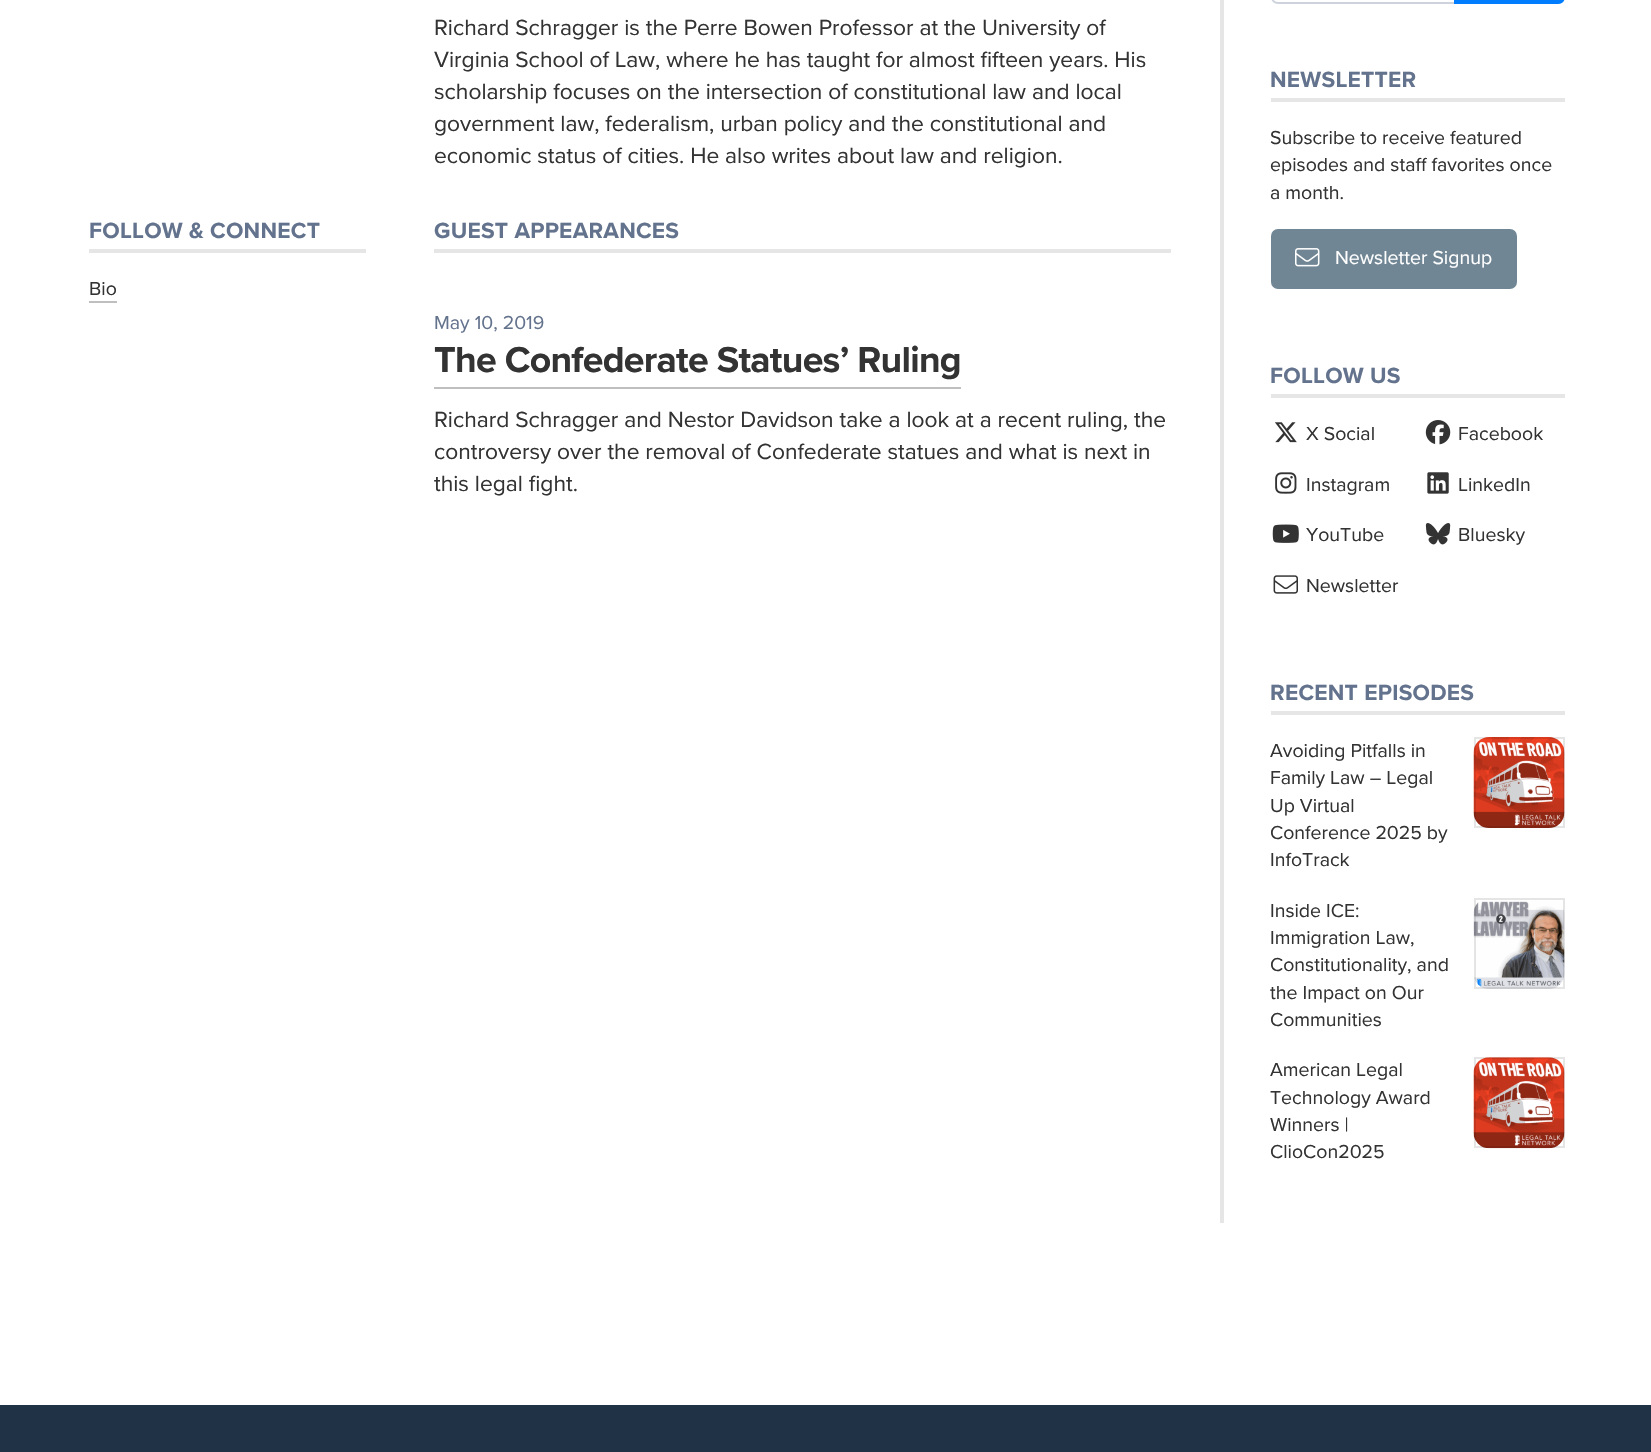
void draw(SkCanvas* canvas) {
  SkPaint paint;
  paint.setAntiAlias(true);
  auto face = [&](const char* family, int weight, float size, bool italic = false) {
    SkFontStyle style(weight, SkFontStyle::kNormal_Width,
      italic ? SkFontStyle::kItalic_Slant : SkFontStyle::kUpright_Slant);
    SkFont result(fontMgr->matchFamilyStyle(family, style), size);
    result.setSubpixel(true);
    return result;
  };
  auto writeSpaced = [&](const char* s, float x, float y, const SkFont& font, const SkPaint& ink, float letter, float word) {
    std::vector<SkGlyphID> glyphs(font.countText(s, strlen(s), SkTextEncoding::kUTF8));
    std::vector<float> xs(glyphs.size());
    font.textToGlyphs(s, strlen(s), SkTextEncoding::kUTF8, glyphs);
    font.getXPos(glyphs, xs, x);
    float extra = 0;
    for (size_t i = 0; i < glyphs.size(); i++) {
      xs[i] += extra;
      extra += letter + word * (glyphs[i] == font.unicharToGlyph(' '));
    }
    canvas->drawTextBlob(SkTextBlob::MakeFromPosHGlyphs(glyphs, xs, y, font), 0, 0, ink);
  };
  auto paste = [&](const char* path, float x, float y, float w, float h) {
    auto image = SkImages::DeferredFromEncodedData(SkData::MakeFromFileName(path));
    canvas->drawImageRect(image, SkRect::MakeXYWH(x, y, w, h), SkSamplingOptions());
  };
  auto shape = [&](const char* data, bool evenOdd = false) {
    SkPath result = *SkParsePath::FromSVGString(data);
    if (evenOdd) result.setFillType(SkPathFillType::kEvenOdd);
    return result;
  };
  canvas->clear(0xffffffff);
  {
    const struct { float x, y, w, h; SkColor color; } items[] = {
      {89, 249, 277, 4, 0xffe6e6e6},
      {89, 301, 28, 2, 0xffbfbfbf},
      {434, 249, 737, 4, 0xffe6e6e6},
      {434, 387, 527, 2, 0xffbfbfbf},
      {1220, 0, 4, 1223, 0xffe6e6e6},
    };
    for (auto [x, y, w, h, color] : items) {
      paint.setColor(color);
      canvas->drawRect(SkRect::MakeXYWH(x, y, w, h), paint);
    }
  }
  paint.setStroke(true);
  paint.setStrokeWidth(2);
  paint.setColor(0xffcdd2dc);
  canvas->drawPath(shape("M1278-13H1553C1559-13 1564-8 1564-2V-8C1564-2 1559 3 1553 3H1278C1274.5 3 1272 .5 1272-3V-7C1272-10.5 1274.5-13 1278-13Z"), paint);
  paint.setStroke(false);
  paint.setColor(0xff007dff);
  canvas->drawPath(shape("M1454-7H1558C1562-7 1565-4 1565 0V-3C1565 1 1562 4 1558 4H1454Z"), paint);
  paint.setColor(0xffe6e6e6);
  canvas->drawRect(SkRect::MakeXYWH(1271, 98, 294, 4), paint);
  paint.setColor(0xff718695);
  canvas->drawRoundRect(SkRect::MakeXYWH(1271, 229, 246, 60), 7, 7, paint);
  paste("img/1.png", 1295, 248, 25, 19);
  paint.setColor(0xffe6e6e6);
  canvas->drawRect(SkRect::MakeXYWH(1271, 394, 294, 4), paint);
  paste("img/2.png", 1275, 422, 22, 21);
  paste("img/3.png", 1425, 420, 26, 25);
  paste("img/4.png", 1275, 472, 22, 22);
  paste("img/5.png", 1427, 472, 22, 22);
  paste("img/6.png", 1272, 524, 27, 19);
  paste("img/7.png", 1425, 523, 26, 22);
  paste("img/8.png", 1273, 575, 25, 19);
  canvas->drawRect(SkRect::MakeXYWH(1271, 711, 294, 4), paint);
  paste("img/9.png", 1473, 737, 92, 91);
  paint.setStroke(true);
  paint.setColor(0x1a000000);
  canvas->drawRect(SkRect::MakeXYWH(1475, 738, 89, 89), paint);
  paste("img/10.png", 1473, 901, 92, 88);
  canvas->drawRect(SkRect::MakeXYWH(1475, 899, 89, 89), paint);
  paste("img/11.png", 1473, 1057, 92, 92);
  canvas->drawRect(SkRect::MakeXYWH(1475, 1058, 89, 89), paint);
  paint.setStroke(false);
  paint.setColor(0xff203245);
  canvas->drawRect(SkRect::MakeXYWH(0, 1405, 1651, 47), paint);
  auto f0 = face("Proxima Nova", 400, 22.75f);
  paint.setColor(0xff333333);
  {
    const struct { const char* s; float x, y; } items[] = {
      {"Richard Schragger is the Perre Bowen Professor at the University of", 434, 35},
      {"Virginia School of Law, where he has taught for almost fifteen years. His", 434, 67},
      {"scholarship focuses on the intersection of constitutional law and local", 434, 99},
      {"government law, federalism, urban policy and the constitutional and", 434, 131},
      {"economic status of cities. He also writes about law and religion.", 434, 163},
    };
    for (auto [s, x, y] : items) {
      canvas->drawString(s, x, y, f0, paint);
    }
  }
  auto f1 = face("Proxima Nova", 700, 22.75f);
  paint.setColor(0xff64738d);
  writeSpaced("FOLLOW & CONNECT", 89, 238, f1, paint, 0.25f, 0);
  auto f2 = face("Proxima Nova", 400, 19.5f);
  paint.setColor(0xff333333);
  canvas->drawString("Bio", 89, 295, f2, paint);
  paint.setColor(0xff64738d);
  writeSpaced("GUEST APPEARANCES", 434, 238, f1, paint, 0.25f, 0);
  canvas->drawString("May 10, 2019", 434, 329, f2, paint);
  auto f3 = face("Proxima Nova", 700, 37.4f);
  paint.setColor(0xff333333);
  writeSpaced("The Confederate Statues’ Ruling", 434, 372, f3, paint, -0.75f, 0);
  {
    const struct { const char* s; float x, y; } items[] = {
      {"Richard Schragger and Nestor Davidson take a look at a recent ruling, the", 434, 427},
      {"controversy over the removal of Confederate statues and what is next in", 434, 459},
      {"this legal fight.", 434, 491},
    };
    for (auto [s, x, y] : items) {
      canvas->drawString(s, x, y, f0, paint);
    }
  }
  paint.setColor(0xff64738d);
  writeSpaced("NEWSLETTER", 1270, 87, f1, paint, 0.25f, 0);
  paint.setColor(0xff333333);
  {
    const struct { const char* s; float x, y; } items[] = {
      {"Subscribe to receive featured", 1270, 144},
      {"episodes and staff favorites once", 1270, 171},
      {"a month.", 1270, 199},
    };
    for (auto [s, x, y] : items) {
      canvas->drawString(s, x, y, f2, paint);
    }
  }
  paint.setColor(0xffffffff);
  canvas->drawString("Newsletter Signup", 1335, 264, f2, paint);
  paint.setColor(0xff64738d);
  writeSpaced("FOLLOW US", 1270, 383, f1, paint, 0.25f, 0);
  paint.setColor(0xff333333);
  {
    const struct { const char* s; float x, y; } items[] = {
      {"X Social", 1306, 440},
      {"Facebook", 1458, 440},
      {"Instagram", 1306, 491},
      {"LinkedIn", 1458, 491},
      {"YouTube", 1306, 541},
      {"Bluesky", 1458, 541},
      {"Newsletter", 1306, 592},
    };
    for (auto [s, x, y] : items) {
      canvas->drawString(s, x, y, f2, paint);
    }
  }
  paint.setColor(0xff64738d);
  writeSpaced("RECENT EPISODES", 1270, 700, f1, paint, 0.25f, 0);
  paint.setColor(0xff333333);
  {
    const struct { const char* s; float x, y; } items[] = {
      {"Avoiding Pitfalls in", 1270, 757},
      {"Family Law – Legal", 1270, 784},
      {"Up Virtual", 1270, 812},
      {"Conference 2025 by", 1270, 839},
      {"InfoTrack", 1270, 866},
      {"Inside ICE:", 1270, 917},
      {"Immigration Law,", 1270, 944},
      {"Constitutionality, and", 1270, 971},
      {"the Impact on Our", 1270, 999},
      {"Communities", 1270, 1026},
      {"American Legal", 1270, 1076},
      {"Technology Award", 1270, 1104},
      {"Winners |", 1270, 1131},
      {"ClioCon2025", 1270, 1158},
    };
    for (auto [s, x, y] : items) {
      canvas->drawString(s, x, y, f2, paint);
    }
  }
}
